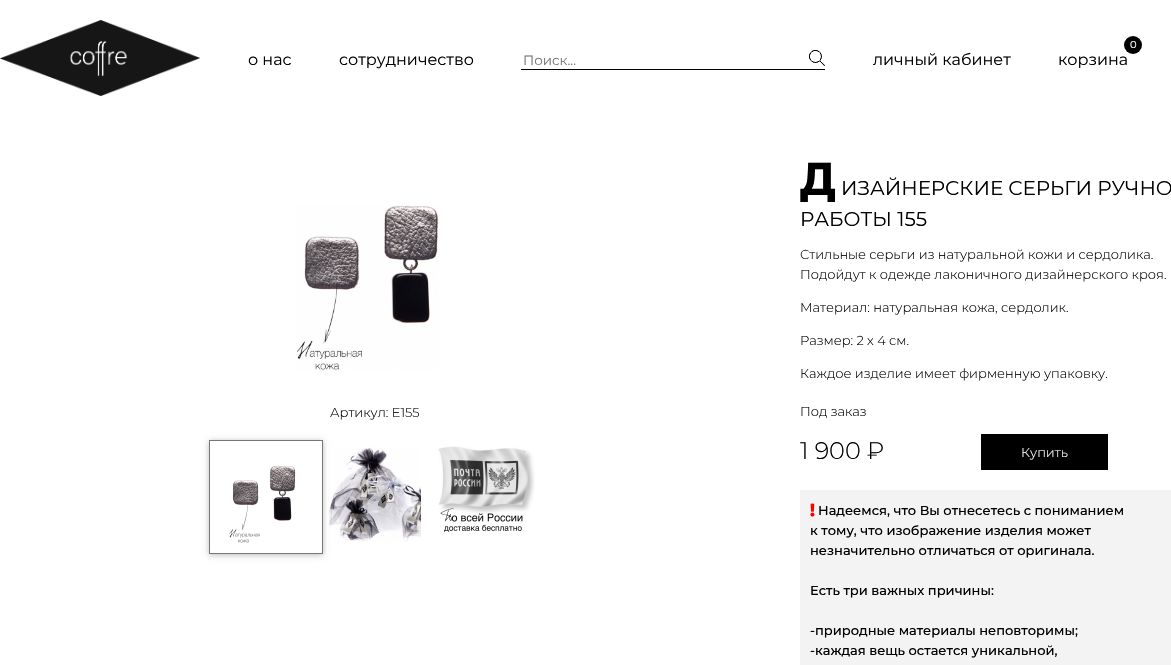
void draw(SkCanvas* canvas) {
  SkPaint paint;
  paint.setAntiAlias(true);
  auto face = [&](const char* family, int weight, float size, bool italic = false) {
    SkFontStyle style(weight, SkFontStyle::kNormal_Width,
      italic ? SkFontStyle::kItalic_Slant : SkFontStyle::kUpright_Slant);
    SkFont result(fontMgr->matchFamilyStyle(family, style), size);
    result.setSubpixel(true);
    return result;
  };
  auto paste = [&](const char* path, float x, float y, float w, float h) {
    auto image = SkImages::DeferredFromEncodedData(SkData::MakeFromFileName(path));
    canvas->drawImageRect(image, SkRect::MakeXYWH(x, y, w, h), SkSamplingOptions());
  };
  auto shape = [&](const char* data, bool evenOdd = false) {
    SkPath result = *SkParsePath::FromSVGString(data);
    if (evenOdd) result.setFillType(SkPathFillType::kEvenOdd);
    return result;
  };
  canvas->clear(0xffffffff);
  paste("img/1.png", 0, 20, 200, 76);
  paint.setColor(0xff000000);
  canvas->drawRect(SkRect::MakeXYWH(521, 69, 304, 1), paint);
  paste("img/2.png", 809, 50, 16, 16);
  canvas->drawCircle(1133, 45, 9, paint);
  paste("img/3.png", 296, 205, 143, 165);
  canvas->save();
  canvas->clipPath(shape("M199 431H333V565H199ZM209 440H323V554H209Z", true), true);
  paint.setColor(0xffbbbbbb);
  paint.setMaskFilter(SkMaskFilter::MakeBlur(kNormal_SkBlurStyle, 3));
  canvas->drawRect(SkRect::MakeXYWH(209, 441, 114, 114), paint);
  paint.setMaskFilter(nullptr);
  canvas->restore();
  paint.setStroke(true);
  paint.setStrokeWidth(1);
  paint.setColor(0xff777777);
  canvas->drawRect(SkRect::MakeXYWH(209.5f, 440.5f, 113, 113), paint);
  paste("img/4.png", 229, 465, 67, 78);
  paint.setColor(0xffffffff);
  canvas->drawRect(SkRect::MakeXYWH(327.5f, 440.5f, 95, 113), paint);
  paste("img/5.png", 329, 447, 92, 95);
  paste("img/6.png", 438, 446, 97, 86);
  paint.setStroke(false);
  paint.setColor(0xff000000);
  canvas->drawRect(SkRect::MakeXYWH(981, 434, 127, 36), paint);
  paint.setColor(0xfff3f3f3);
  canvas->drawRect(SkRect::MakeXYWH(800, 490, 371, 175), paint);
  paste("img/7.png", 810, 503, 5, 14);
  auto f0 = face("Montserrat", 400, 16);
  paint.setColor(0xff000000);
  canvas->drawString("о нас", 248, 65, f0, paint);
  canvas->drawString("сотрудничество", 339, 65, f0, paint);
  auto f1 = face("Montserrat", 400, 13.5f);
  paint.setColor(0xff757575);
  canvas->drawString("Поиск...", 523, 65, f1, paint);
  paint.setColor(0xff000000);
  canvas->drawString("личный кабинет", 873, 65, f0, paint);
  auto f2 = face("Montserrat", 400, 10);
  paint.setColor(0xffffffff);
  canvas->drawString("0", 1130, 48, f2, paint);
  paint.setColor(0xff000000);
  canvas->drawString("корзина", 1058, 65, f0, paint);
  auto f3 = face("Montserrat", 300, 13);
  canvas->drawString("Артикул: E155", 330, 417, f3, paint);
  auto f4 = face("Noto Sans", 800, 45);
  canvas->drawString("Д", 800, 195, f4, paint);
  auto f5 = face("Montserrat", 400, 20);
  canvas->drawString("ИЗАЙНЕРСКИЕ СЕРЬГИ РУЧНО", 841, 195, f5, paint);
  canvas->drawString("РАБОТЫ 155", 800, 226, f5, paint);
  {
    const struct { const char* s; float x, y; } items[] = {
      {"Стильные серьги из натуральной кожи и сердолика.", 800, 259},
      {"Подойдут к одежде лаконичного дизайнерского кроя.", 800, 279},
      {"Материал: натуральная кожа, сердолик.", 800, 312},
      {"Размер: 2 х 4 см.", 800, 345},
      {"Каждое изделие имеет фирменную упаковку.", 800, 378},
      {"Под заказ", 800, 416},
    };
    for (auto [s, x, y] : items) {
      canvas->drawString(s, x, y, f3, paint);
    }
  }
  auto f6 = face("Montserrat", 300, 24);
  canvas->drawString("1 900 ₽", 800, 459, f6, paint);
  paint.setColor(0xffffffff);
  canvas->drawString("Купить", 1021, 457, f3, paint);
  auto f7 = face("Montserrat", 500, 13);
  paint.setColor(0xff000000);
  {
    const struct { const char* s; float x, y; } items[] = {
      {"Надеемся, что Вы отнесетесь с пониманием", 818, 515},
      {"к тому, что изображение изделия может", 810, 535},
      {"незначительно отличаться от оригинала.", 810, 555},
      {"Есть три важных причины:", 810, 595},
      {"-природные материалы неповторимы;", 810, 635},
      {"-каждая вещь остается уникальной,", 810, 655},
    };
    for (auto [s, x, y] : items) {
      canvas->drawString(s, x, y, f7, paint);
    }
  }
}
